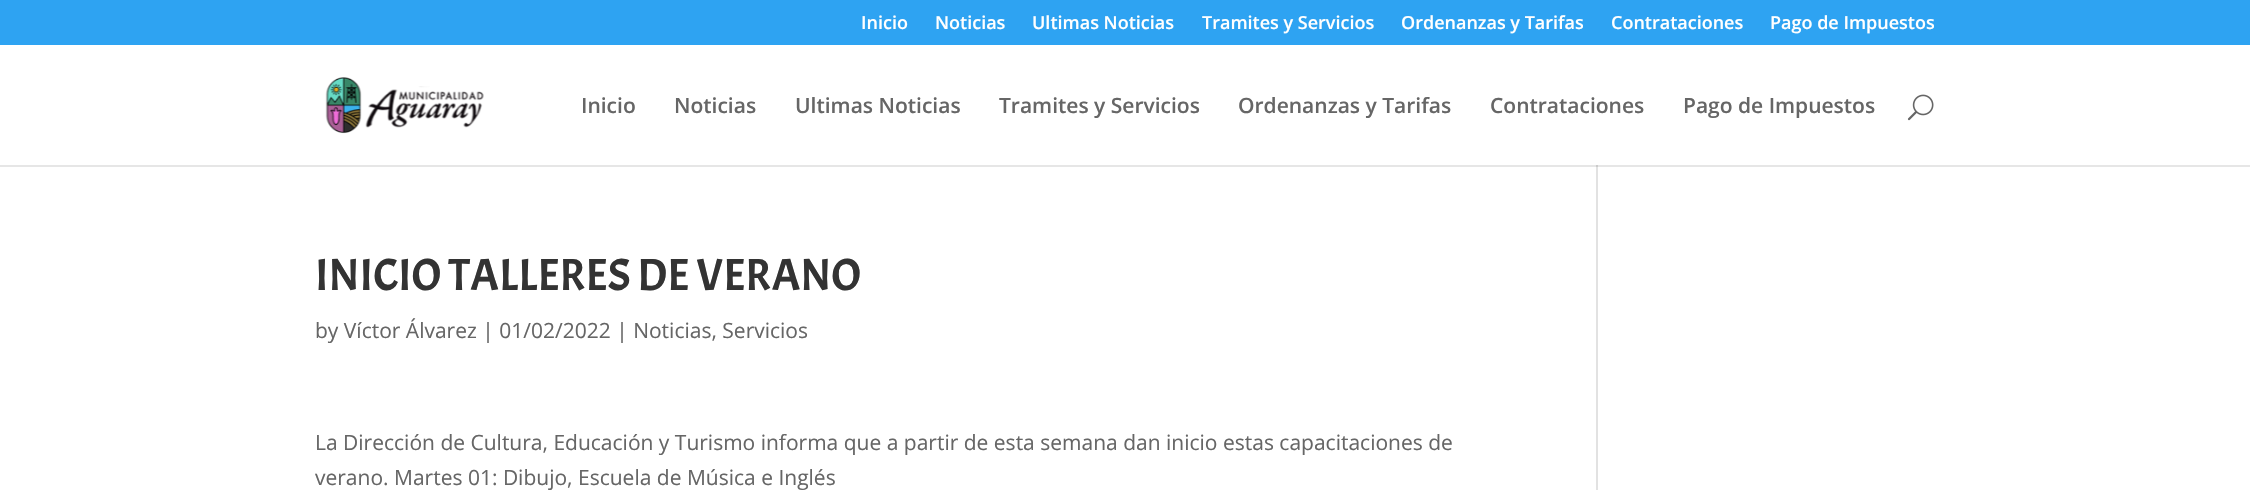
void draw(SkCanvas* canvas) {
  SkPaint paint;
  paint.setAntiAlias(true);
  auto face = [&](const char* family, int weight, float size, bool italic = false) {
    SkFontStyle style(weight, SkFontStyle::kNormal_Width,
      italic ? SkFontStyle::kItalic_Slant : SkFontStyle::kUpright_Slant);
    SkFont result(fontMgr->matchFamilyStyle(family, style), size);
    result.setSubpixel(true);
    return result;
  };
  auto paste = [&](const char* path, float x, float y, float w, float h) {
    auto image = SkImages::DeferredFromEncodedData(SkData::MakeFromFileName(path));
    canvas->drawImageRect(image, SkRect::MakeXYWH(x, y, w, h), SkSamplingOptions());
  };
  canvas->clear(0xffffffff);
  paint.setColor(0xffe6e6e6);
  canvas->drawRect(SkRect::MakeXYWH(0, 165, 2250, 2), paint);
  paint.setColor(0xff2ea3f2);
  canvas->drawRect(SkRect::MakeXYWH(0, 0, 2250, 45), paint);
  paste("img/1.png", 325, 77, 159, 57);
  paste("img/2.png", 1907, 94, 27, 27);
  paint.setColor(0xffe2e2e2);
  canvas->drawRect(SkRect::MakeXYWH(1596, 165, 2, 325), paint);
  paint.setColor(0xffcbcbcb);
  canvas->drawRect(SkRect::MakeXYWH(1596, 165, 2, 2), paint);
  auto f0 = face("Open Sans", 600, 18);
  paint.setColor(0xffffffff);
  {
    const struct { const char* s; float x, y; } items[] = {
      {"Inicio", 861, 29},
      {"Noticias", 935, 29},
      {"Ultimas Noticias", 1032, 29},
      {"Tramites y Servicios", 1202, 29},
      {"Ordenanzas y Tarifas", 1401, 29},
      {"Contrataciones", 1611, 29},
      {"Pago de Impuestos", 1770, 29},
    };
    for (auto [s, x, y] : items) {
      canvas->drawString(s, x, y, f0, paint);
    }
  }
  auto f1 = face("Open Sans", 600, 21);
  paint.setColor(0xff666666);
  {
    const struct { const char* s; float x, y; } items[] = {
      {"Inicio", 581, 113},
      {"Noticias", 674, 113},
      {"Ultimas Noticias", 795, 113},
      {"Tramites y Servicios", 999, 113},
      {"Ordenanzas y Tarifas", 1238, 113},
      {"Contrataciones", 1490, 113},
      {"Pago de Impuestos", 1683, 113},
    };
    for (auto [s, x, y] : items) {
      canvas->drawString(s, x, y, f1, paint);
    }
  }
  auto f2 = face("Acme", 400, 45);
  paint.setColor(0xff333333);
  canvas->drawString("INICIO TALLERES DE VERANO", 315, 290, f2, paint);
  auto f3 = face("Open Sans", 400, 21);
  paint.setColor(0xff666666);
  {
    const struct { const char* s; float x, y; } items[] = {
      {"by Víctor Álvarez | 01/02/2022 | Noticias, Servicios", 315, 338},
      {"La Dirección de Cultura, Educación y Turismo informa que a partir de esta semana dan inicio estas capacitaciones de", 315, 450},
      {"verano. Martes 01: Dibujo, Escuela de Música e Inglés", 315, 485},
    };
    for (auto [s, x, y] : items) {
      canvas->drawString(s, x, y, f3, paint);
    }
  }
}
